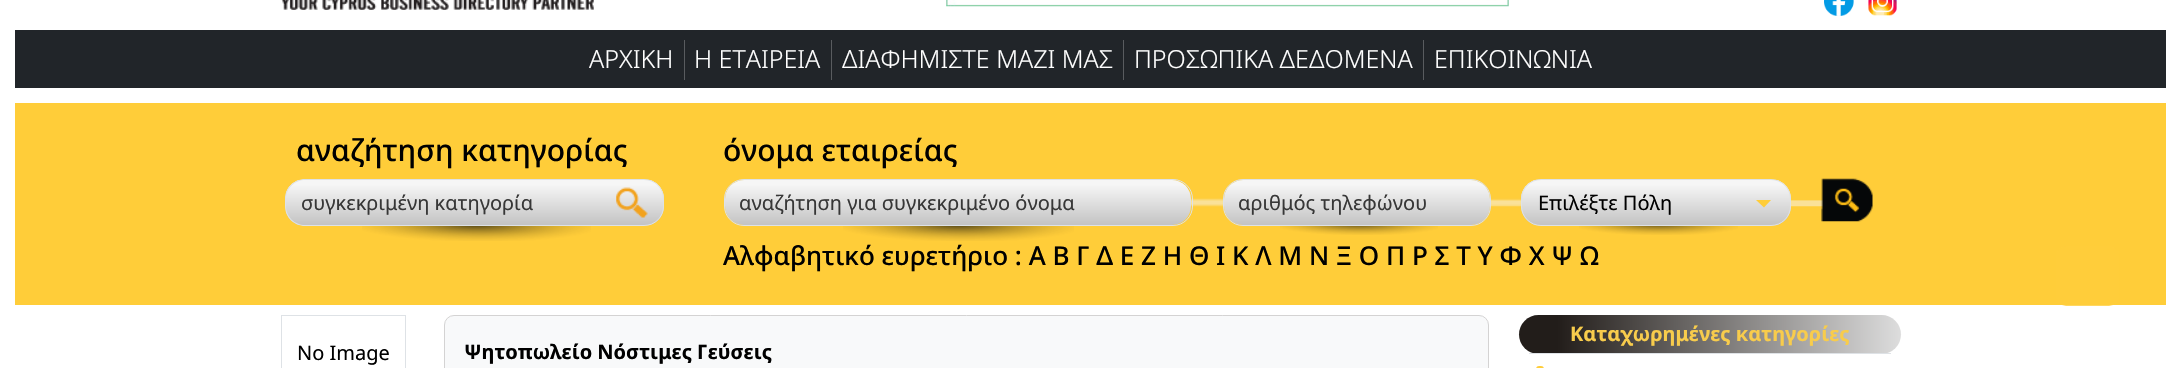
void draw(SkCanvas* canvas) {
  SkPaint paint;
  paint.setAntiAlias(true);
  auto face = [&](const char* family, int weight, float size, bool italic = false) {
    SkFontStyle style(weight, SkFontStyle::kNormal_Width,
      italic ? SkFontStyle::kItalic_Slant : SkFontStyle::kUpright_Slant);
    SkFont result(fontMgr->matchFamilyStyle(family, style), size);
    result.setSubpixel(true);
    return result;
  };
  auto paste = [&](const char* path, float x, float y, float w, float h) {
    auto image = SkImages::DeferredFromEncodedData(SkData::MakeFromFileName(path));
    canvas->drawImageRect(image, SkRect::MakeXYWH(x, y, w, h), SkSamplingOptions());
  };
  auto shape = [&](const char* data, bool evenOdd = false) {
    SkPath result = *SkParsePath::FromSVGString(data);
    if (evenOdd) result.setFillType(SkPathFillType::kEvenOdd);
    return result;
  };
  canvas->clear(0xffffffff);
  paste("img/1.png", 281, 0, 313, 10);
  paste("img/2.png", 946, 0, 563, 7);
  paste("img/3.png", 1824, 0, 30, 16);
  paste("img/4.png", 1868, 0, 29, 16);
  {
    const struct { float x, y, w, h; SkColor color; } items[] = {
      {15, 30, 2151, 58, 0xff212529},
      {684, 40, 1, 40, 0xff595c5f},
      {831, 40, 1, 40, 0xff595c5f},
      {1123, 40, 1, 40, 0xff595c5f},
      {1423, 40, 1, 40, 0xff595c5f},
      {15, 103, 2151, 202, 0xffffcd39},
    };
    for (auto [x, y, w, h, color] : items) {
      paint.setColor(color);
      canvas->drawRect(SkRect::MakeXYWH(x, y, w, h), paint);
    }
  }
  canvas->save();
  canvas->clipPath(shape("M600 179H644C655 179 664 188 664 199V206C664 217 655 226 644 226H600Z"), true);
  {
    const SkColor colors[] = {0xfff6f6f6, 0xffc3c3c3};
    const float stops[] = {0.1f, 1};
    const SkPoint ends[] = {{632, 180}, {632, 225}};
    paint.setShader(SkGradientShader::MakeLinear(ends, colors, stops, 2, SkTileMode::kClamp));
    paint.setAlpha(255);
  }
  canvas->drawRect(SkRect::MakeXYWH(601, 180, 63, 45), paint);
  canvas->restore();
  paint.setStroke(true);
  paint.setStrokeWidth(1);
  paint.setShader(nullptr);
  paint.setColor(0xffdee2e6);
  canvas->drawPath(shape("M600.5 179.5H644C655 179.5 663.5 188 663.5 199V206C663.5 217 655 225.5 644 225.5H600.5Z"), paint);
  canvas->save();
  canvas->clipPath(shape("M305 179H601V226H305C294 226 285 217 285 206V199C285 188 294 179 305 179Z"), true);
  paint.setStroke(false);
  {
    const SkColor colors[] = {0xfff6f6f6, 0xffc3c3c3};
    const float stops[] = {0.1f, 1};
    const SkPoint ends[] = {{444, 180}, {444, 225}};
    paint.setShader(SkGradientShader::MakeLinear(ends, colors, stops, 2, SkTileMode::kClamp));
    paint.setAlpha(255);
  }
  canvas->drawRect(SkRect::MakeXYWH(286, 180, 315, 45), paint);
  canvas->restore();
  paint.setShader(nullptr);
  paint.setColor(0xffdee2e6);
  canvas->drawPath(shape("M305 179H601V226H305C294 226 285 217 285 206V199C285 188 294 179 305 179ZM305 180H601V225H305C295 225 286 217 286 206V199C286 188 295 180 305 180Z", true), paint);
  paste("img/5.png", 616, 187, 32, 31);
  paste("img/6.png", 362, 226, 229, 15);
  paste("img/7.png", 1190, 198, 633, 9);
  {
    const SkColor colors[] = {0xfff6f6f6, 0xffc3c3c3};
    const float stops[] = {0.1f, 1};
    const SkPoint ends[] = {{958, 180}, {958, 225}};
    paint.setShader(SkGradientShader::MakeLinear(ends, colors, stops, 2, SkTileMode::kClamp));
    paint.setAlpha(255);
  }
  canvas->drawRoundRect(SkRect::MakeXYWH(725, 180, 466, 45), 19, 19, paint);
  paint.setStroke(true);
  paint.setShader(nullptr);
  paint.setColor(0xffdee2e6);
  canvas->drawRoundRect(SkRect::MakeXYWH(724.5f, 179.5f, 468, 46), 19.5f, 19.5f, paint);
  paste("img/8.png", 843, 226, 231, 15);
  paint.setStroke(false);
  {
    const SkColor colors[] = {0xfff6f6f6, 0xffc3c3c3};
    const float stops[] = {0.1f, 1};
    const SkPoint ends[] = {{1357, 180}, {1357, 225}};
    paint.setShader(SkGradientShader::MakeLinear(ends, colors, stops, 2, SkTileMode::kClamp));
    paint.setAlpha(255);
  }
  canvas->drawRoundRect(SkRect::MakeXYWH(1224, 180, 266, 45), 19, 19, paint);
  paint.setStroke(true);
  paint.setShader(nullptr);
  paint.setColor(0xffdee2e6);
  canvas->drawRoundRect(SkRect::MakeXYWH(1223.5f, 179.5f, 267, 46), 19.5f, 19.5f, paint);
  paste("img/9.png", 1280, 226, 158, 9);
  canvas->save();
  canvas->clipPath(shape("M1541 179H1771C1782 179 1791 188 1791 199V206C1791 217 1782 226 1771 226H1541C1530 226 1521 217 1521 206V199C1521 188 1530 179 1541 179Z"), true);
  paint.setStroke(false);
  {
    const SkColor colors[] = {0xfff6f6f6, 0xffc3c3c3};
    const float stops[] = {0.1f, 1};
    const SkPoint ends[] = {{1656, 180}, {1656, 225}};
    paint.setShader(SkGradientShader::MakeLinear(ends, colors, stops, 2, SkTileMode::kClamp));
    paint.setAlpha(255);
  }
  canvas->drawRect(SkRect::MakeXYWH(1521, 180, 270, 45), paint);
  canvas->restore();
  paint.setStroke(true);
  paint.setShader(nullptr);
  paint.setColor(0xffdee2e6);
  canvas->drawRoundRect(SkRect::MakeXYWH(1521.5f, 179.5f, 269, 46), 19.5f, 19.5f, paint);
  paint.setStroke(false);
  paint.setColor(0xffffcd39);
  canvas->drawPath(shape("M1756 200H1771L1764 207.5Z"), paint);
  paste("img/10.png", 1579, 226, 159, 9);
  paste("img/11.png", 1821, 178, 52, 44);
  paint.setColor(0xccffcd39);
  canvas->drawRoundRect(SkRect::MakeXYWH(2056, 246, 63, 60), 10, 10, paint);
  {
    const SkColor colors[] = {0xff221d1a, 0xffdddddd};
    const float stops[] = {0.1f, 1};
    const SkPoint ends[] = {{1519, 334}, {1901, 334}};
    paint.setShader(SkGradientShader::MakeLinear(ends, colors, stops, 2, SkTileMode::kClamp));
    paint.setAlpha(255);
  }
  canvas->drawRoundRect(SkRect::MakeXYWH(1519, 315, 382, 39), 19.5f, 19.5f, paint);
  paint.setShader(nullptr);
  paint.setColor(0xffdee2e6);
  canvas->drawRect(SkRect::MakeXYWH(1529, 353, 362, 1), paint);
  paint.setColor(0xffffcd39);
  canvas->drawRoundRect(SkRect::MakeXYWH(1536, 366, 8, 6), 4, 4, paint);
  paint.setStroke(true);
  paint.setColor(0xffdee2e6);
  canvas->drawRect(SkRect::MakeXYWH(281.5f, 315.5f, 124, 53), paint);
  paint.setStroke(false);
  paint.setColor(0xfff8f9fa);
  canvas->drawRoundRect(SkRect::MakeXYWH(444.5f, 315.5f, 1044, 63), 9.5f, 9.5f, paint);
  paint.setStroke(true);
  paint.setColor(0xffd4d3d3);
  canvas->drawRoundRect(SkRect::MakeXYWH(444.5f, 315.5f, 1044, 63), 9.5f, 9.5f, paint);
  auto f0 = face("Noto Sans", 300, 25);
  paint.setStroke(false);
  paint.setColor(0xffffffff);
  {
    const struct { const char* s; float x, y; } items[] = {
      {"ΑΡΧΙΚΗ", 589, 68},
      {"Η ΕΤΑΙΡΕΙΑ", 694, 68},
      {"ΔΙΑΦΗΜΙΣΤΕ ΜΑΖΙ ΜΑΣ", 842, 68},
      {"ΠΡΟΣΩΠΙΚA ΔΕΔΟΜΕΝA", 1134, 68},
      {"ΕΠΙΚΟΙΝΩΝΙΑ", 1434, 68},
    };
    for (auto [s, x, y] : items) {
      canvas->drawString(s, x, y, f0, paint);
    }
  }
  auto f1 = face("Noto Sans", 500, 30);
  paint.setColor(0xff000000);
  canvas->drawString("αναζήτηση κατηγορίας", 296, 161, f1, paint);
  auto f2 = face("Noto Sans", 400, 20);
  paint.setColor(0xff373737);
  canvas->drawString("συγκεκριμένη κατηγορία", 301, 210, f2, paint);
  paint.setColor(0xff000000);
  canvas->drawString("όνομα εταιρείας", 723, 161, f1, paint);
  paint.setColor(0xff373737);
  canvas->drawString("αναζήτηση για συγκεκριμένο όνομα", 739, 210, f2, paint);
  canvas->drawString("αριθμός τηλεφώνου", 1238, 210, f2, paint);
  paint.setColor(0xff000000);
  canvas->drawString("Επιλέξτε Πόλη", 1538, 210, f2, paint);
  auto f3 = face("Noto Sans", 500, 26);
  canvas->drawString("Αλφαβητικό ευρετήριο : Α Β Γ Δ Ε Ζ Η Θ Ι Κ Λ Μ Ν Ξ Ο Π Ρ Σ Τ Υ Φ Χ Ψ Ω", 723, 265, f3, paint);
  auto f4 = face("Noto Sans", 700, 20);
  paint.setColor(0xfff8cc4c);
  canvas->drawString("Καταχωρημένες κατηγορίες", 1570, 341, f4, paint);
  paint.setColor(0xff000000);
  canvas->drawString("No Image", 297, 360, f2, paint);
  canvas->drawString("Ψητοπωλείο Νόστιμες Γεύσεις", 464, 359, f4, paint);
}
